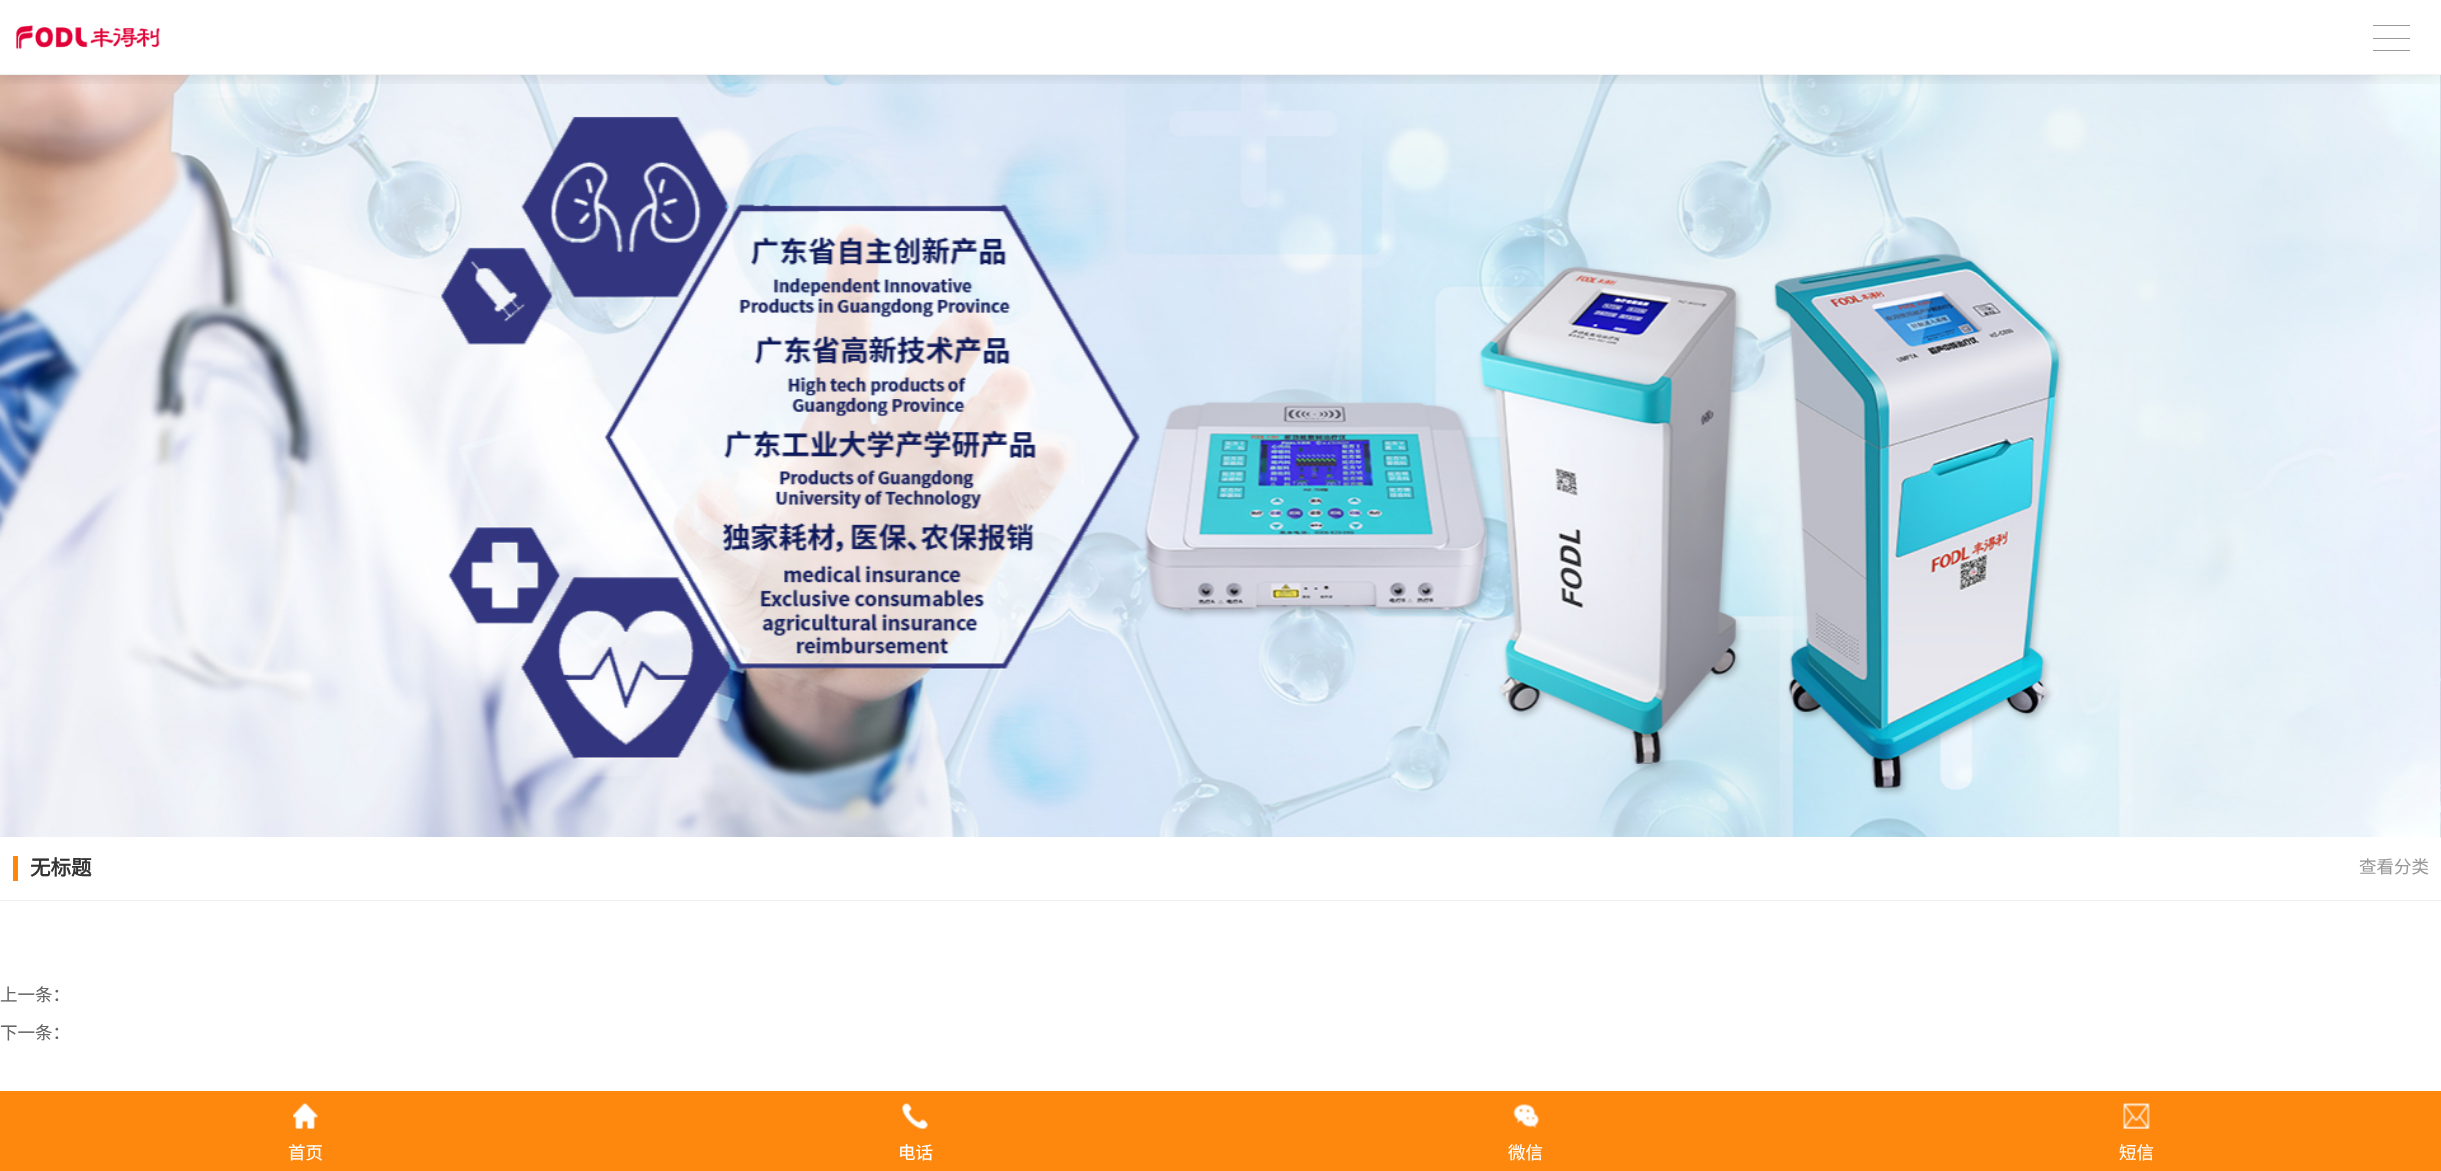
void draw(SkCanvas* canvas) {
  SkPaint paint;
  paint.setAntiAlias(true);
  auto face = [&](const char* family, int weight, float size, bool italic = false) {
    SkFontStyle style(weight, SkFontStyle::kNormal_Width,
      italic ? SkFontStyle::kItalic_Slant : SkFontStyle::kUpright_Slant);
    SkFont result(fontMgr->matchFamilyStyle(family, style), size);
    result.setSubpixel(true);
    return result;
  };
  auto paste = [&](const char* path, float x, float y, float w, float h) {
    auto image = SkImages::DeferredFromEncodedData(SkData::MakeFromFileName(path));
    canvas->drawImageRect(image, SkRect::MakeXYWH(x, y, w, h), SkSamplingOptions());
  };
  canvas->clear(0xffffffff);
  paste("img/2.png", 0, 75, 2441, 762);
  paste("img/3.png", 2440, 75, 1, 763);
  canvas->save();
  canvas->clipRect(SkRect::MakeXYWH(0, 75, 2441, 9));
  paint.setColor(0x1a000000);
  paint.setMaskFilter(SkMaskFilter::MakeBlur(kNormal_SkBlurStyle, 7.5f));
  canvas->drawRect(SkRect::MakeXYWH(0, 3, 2441, 75), paint);
  paint.setMaskFilter(nullptr);
  canvas->restore();
  paste("img/1.png", 16, 25, 144, 24);
  {
    const struct { float x, y, w, h; SkColor color; } items[] = {
      {0, 74, 2441, 1, 0xfff2f2f2},
      {2373, 25, 37, 1, 0xff999999},
      {2373, 38, 37, 1, 0xff999999},
      {2373, 50, 37, 1, 0xff999999},
      {0, 900, 2441, 1, 0xffeeeeee},
      {13, 856, 5, 25, 0xfffe870d},
      {0, 1091, 2441, 80, 0xfffe870d},
    };
    for (auto [x, y, w, h, color] : items) {
      paint.setColor(color);
      canvas->drawRect(SkRect::MakeXYWH(x, y, w, h), paint);
    }
  }
  paste("img/4.png", 293, 1103, 25, 26);
  paste("img/5.png", 902, 1103, 26, 26);
  paste("img/6.png", 1513, 1104, 27, 24);
  paste("img/7.png", 2123, 1103, 27, 26);
  auto f0 = face("Noto Sans CJK SC", 700, 20.5f);
  paint.setColor(0xff333333);
  canvas->drawString("无标题", 30, 875, f0, paint);
  auto f1 = face("Noto Sans CJK SC", 400, 17.5f);
  paint.setColor(0xff999999);
  canvas->drawString("查看分类", 2359, 873, f1, paint);
  paint.setColor(0xff666666);
  canvas->drawString("上一条：", 0, 1001, f1, paint);
  canvas->drawString("下一条：", 0, 1039, f1, paint);
  paint.setColor(0xffffffff);
  {
    const struct { const char* s; float x, y; } items[] = {
      {"首页", 288, 1159},
      {"电话", 898, 1159},
      {"微信", 1508, 1159},
      {"短信", 2119, 1159},
    };
    for (auto [s, x, y] : items) {
      canvas->drawString(s, x, y, f1, paint);
    }
  }
}
